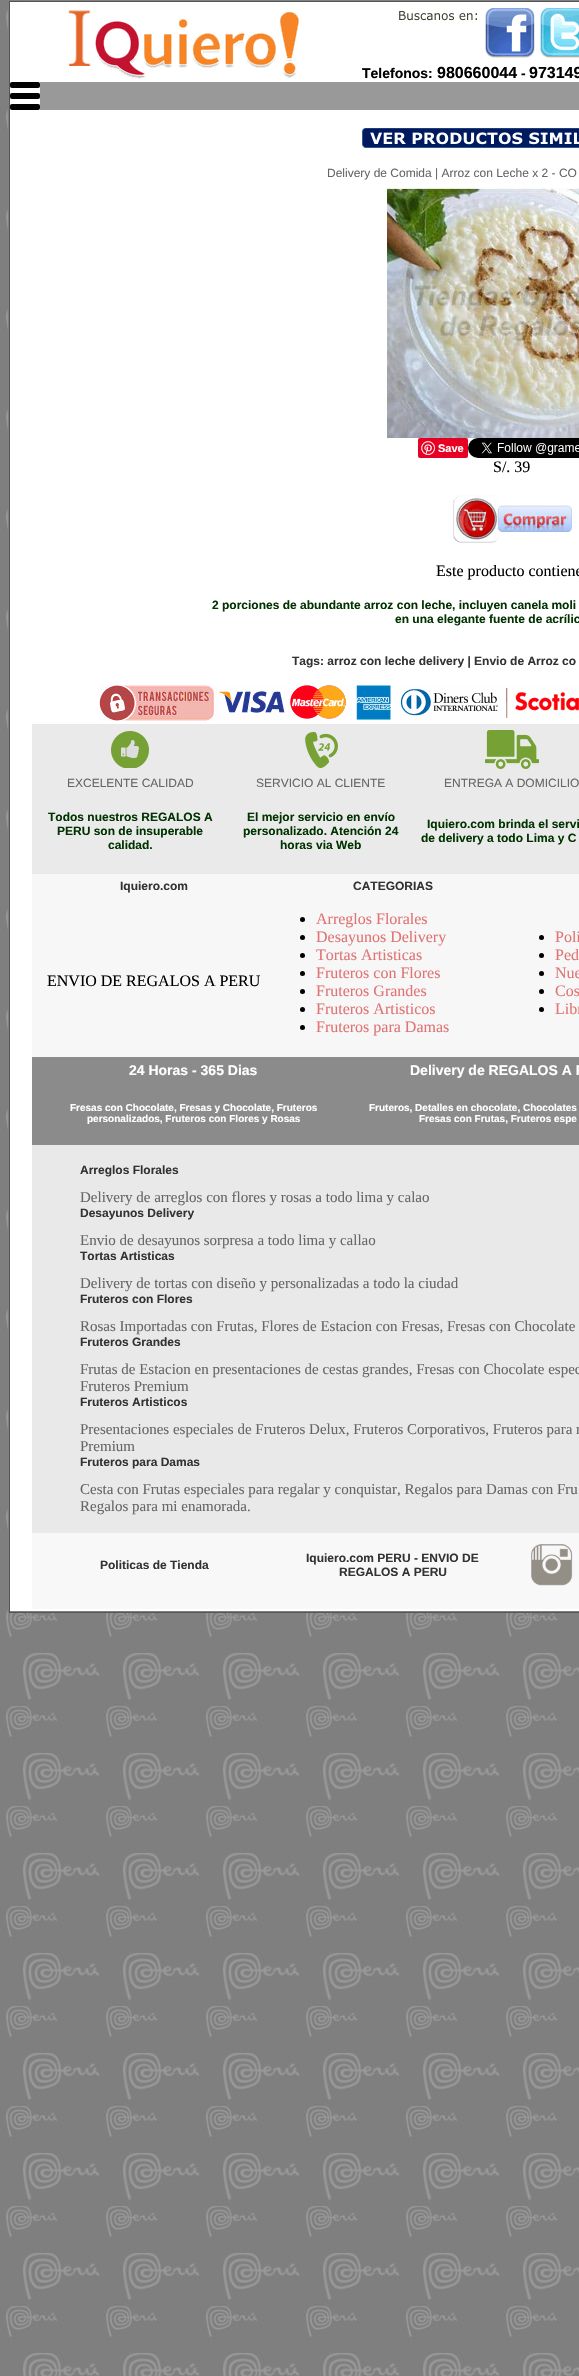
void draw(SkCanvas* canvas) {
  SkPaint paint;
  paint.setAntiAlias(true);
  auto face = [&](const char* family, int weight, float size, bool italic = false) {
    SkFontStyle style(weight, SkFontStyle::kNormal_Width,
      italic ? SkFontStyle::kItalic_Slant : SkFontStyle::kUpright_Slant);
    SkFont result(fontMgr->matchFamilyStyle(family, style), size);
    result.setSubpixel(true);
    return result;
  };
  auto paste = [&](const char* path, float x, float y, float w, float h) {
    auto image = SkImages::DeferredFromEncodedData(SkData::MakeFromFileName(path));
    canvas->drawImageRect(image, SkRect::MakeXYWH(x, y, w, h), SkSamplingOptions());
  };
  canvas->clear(0xffffffff);
  paste("img/1.png", 0, 0, 579, 2376);
  {
    const struct { float x, y, w, h; SkColor color; } items[] = {
      {24, 0, 501, 1, 0xff808080},
      {8, 1612, 571, 1, 0xff555555},
      {8, 0, 1, 1613, 0xff808080},
      {9, 1, 570, 1, 0xff555555},
      {9, 1611, 545, 1, 0xff808080},
      {9, 1, 1, 1611, 0xff555555},
      {10, 2, 569, 80, 0xffffffff},
    };
    for (auto [x, y, w, h, color] : items) {
      paint.setColor(color);
      canvas->drawRect(SkRect::MakeXYWH(x, y, w, h), paint);
    }
  }
  paste("img/2.png", 68, 10, 231, 69);
  paste("img/3.png", 399, 8, 180, 50);
  paint.setColor(0xff999999);
  canvas->drawRect(SkRect::MakeXYWH(40, 82, 539, 28), paint);
  paint.setColor(0xffffffff);
  canvas->drawRect(SkRect::MakeXYWH(10, 82, 30, 28), paint);
  paint.setColor(0xff000000);
  canvas->drawRoundRect(SkRect::MakeXYWH(10, 82, 30, 6), 2, 2, paint);
  canvas->drawRoundRect(SkRect::MakeXYWH(10, 93, 30, 6), 2, 2, paint);
  canvas->drawRoundRect(SkRect::MakeXYWH(10, 104, 30, 6), 2, 2, paint);
  paint.setColor(0xffffffff);
  canvas->drawRect(SkRect::MakeXYWH(10, 110, 569, 614), paint);
  paste("img/4.png", 362, 128, 217, 20);
  paste("img/5.png", 387, 188, 192, 250);
  paint.setColor(0xffe60023);
  canvas->drawRoundRect(SkRect::MakeXYWH(418, 438, 50, 20), 2, 2, paint);
  paste("img/6.png", 421, 441, 14, 14);
  paste("img/7.png", 468, 438, 111, 20);
  paste("img/8.png", 452, 495, 120, 48);
  paste("img/9.png", 99, 685, 480, 36);
  paint.setColor(0xffffffff);
  canvas->drawRect(SkRect::MakeXYWH(10, 724, 22, 885), paint);
  paint.setColor(0xffeaeaea);
  canvas->drawRect(SkRect::MakeXYWH(32, 724, 547, 150), paint);
  paste("img/10.png", 111, 731, 38, 37);
  paste("img/11.png", 305, 732, 33, 36);
  paste("img/12.png", 485, 730, 54, 39);
  paint.setColor(0xfff7f7f7);
  canvas->drawRect(SkRect::MakeXYWH(32, 874, 547, 183), paint);
  paint.setColor(0xff000000);
  canvas->drawCircle(302.5f, 919.5f, 2.5f, paint);
  canvas->drawCircle(302.5f, 937.5f, 2.5f, paint);
  canvas->drawCircle(302.5f, 955.5f, 2.5f, paint);
  canvas->drawCircle(302.5f, 973.5f, 2.5f, paint);
  canvas->drawCircle(302.5f, 991.5f, 2.5f, paint);
  canvas->drawCircle(302.5f, 1009.5f, 2.5f, paint);
  canvas->drawCircle(302.5f, 1027.5f, 2.5f, paint);
  canvas->drawCircle(541.5f, 937.5f, 2.5f, paint);
  canvas->drawCircle(541.5f, 955.5f, 2.5f, paint);
  canvas->drawCircle(541.5f, 973.5f, 2.5f, paint);
  canvas->drawCircle(541.5f, 991.5f, 2.5f, paint);
  canvas->drawCircle(541.5f, 1009.5f, 2.5f, paint);
  {
    const struct { float x, y, w, h; SkColor color; } items[] = {
      {32, 1057, 547, 88, 0xff8b8b8b},
      {32, 1145, 547, 388, 0xffe9e9e9},
      {32, 1533, 547, 76, 0xfff8f8f8},
    };
    for (auto [x, y, w, h, color] : items) {
      paint.setColor(color);
      canvas->drawRect(SkRect::MakeXYWH(x, y, w, h), paint);
    }
  }
  paste("img/13.png", 531, 1544, 42, 42);
  paint.setColor(0xffffffff);
  canvas->drawRect(SkRect::MakeXYWH(10, 1609, 569, 2), paint);
  auto f0 = face("Liberation Sans", 700, 14);
  paint.setColor(0xff000000);
  canvas->drawString("Telefonos:", 362, 78, f0, paint);
  auto f1 = face("Liberation Sans", 700, 16);
  canvas->drawString("980660044", 437, 78, f1, paint);
  canvas->drawString("-", 521, 78, f0, paint);
  canvas->drawString("973149", 529, 78, f1, paint);
  auto f2 = face("Liberation Sans", 400, 12);
  paint.setColor(0xff666666);
  canvas->drawString("Delivery de Comida | Arroz con Leche x 2 - CO", 327, 177, f2, paint);
  auto f3 = face("Liberation Sans", 700, 11);
  paint.setColor(0xffffffff);
  canvas->drawString("Save", 438, 452, f3, paint);
  auto f4 = face("Liberation Serif", 400, 16);
  paint.setColor(0xff000000);
  canvas->drawString("S/. 39", 493, 472, f4, paint);
  canvas->drawString("Este producto contiene", 436, 576, f4, paint);
  auto f5 = face("Liberation Sans", 700, 12);
  paint.setColor(0xff003300);
  canvas->drawString("2 porciones de abundante arroz con leche, incluyen canela moli", 212, 609, f5, paint);
  canvas->drawString("en una elegante fuente de acrílic", 395, 623, f5, paint);
  paint.setColor(0xff333333);
  canvas->drawString("Tags: arroz con leche delivery | Envio de Arroz co", 292, 665, f5, paint);
  paint.setColor(0xff666666);
  {
    const struct { const char* s; float x, y; } items[] = {
      {"EXCELENTE CALIDAD", 67, 787},
      {"SERVICIO AL CLIENTE", 256, 787},
      {"ENTREGA A DOMICILIO", 444, 787},
    };
    for (auto [s, x, y] : items) {
      canvas->drawString(s, x, y, f2, paint);
    }
  }
  paint.setColor(0xff003300);
  {
    const struct { const char* s; float x, y; } items[] = {
      {"Todos nuestros REGALOS A", 48, 821},
      {"PERU son de insuperable", 57, 835},
      {"calidad.", 108, 849},
      {"El mejor servicio en envío", 247, 821},
      {"personalizado. Atención 24", 243, 835},
      {"horas via Web", 280, 849},
      {"Iquiero.com brinda el servi", 427, 828},
      {"de delivery a todo Lima y C", 421, 842},
    };
    for (auto [s, x, y] : items) {
      canvas->drawString(s, x, y, f5, paint);
    }
  }
  paint.setColor(0xff333333);
  canvas->drawString("Iquiero.com", 120, 890, f5, paint);
  canvas->drawString("CATEGORIAS", 353, 890, f5, paint);
  paint.setColor(0xff000000);
  canvas->drawString("ENVIO DE REGALOS A PERU", 47, 986, f4, paint);
  paint.setColor(0xffe07474);
  {
    const struct { const char* s; float x, y; } items[] = {
      {"Arreglos Florales", 316, 924},
      {"Desayunos Delivery", 316, 942},
      {"Tortas Artisticas", 316, 960},
      {"Fruteros con Flores", 316, 978},
      {"Fruteros Grandes", 316, 996},
      {"Fruteros Artisticos", 316, 1014},
      {"Fruteros para Damas", 316, 1032},
      {"Poli", 555, 942},
      {"Ped", 555, 960},
      {"Nue", 555, 978},
      {"Cos", 555, 996},
      {"Libr", 555, 1014},
    };
    for (auto [s, x, y] : items) {
      canvas->drawString(s, x, y, f4, paint);
    }
  }
  paint.setColor(0xffffffff);
  canvas->drawString("24 Horas - 365 Dias", 129, 1075, f0, paint);
  canvas->drawString("Delivery de REGALOS A P", 410, 1075, f0, paint);
  auto f6 = face("Liberation Sans", 700, 10);
  {
    const struct { const char* s; float x, y; } items[] = {
      {"Fresas con Chocolate, Fresas y Chocolate, Fruteros", 70, 1111},
      {"personalizados, Fruteros con Flores y Rosas", 87, 1122},
      {"Fruteros, Detalles en chocolate, Chocolates", 369, 1111},
      {"Fresas con Frutas, Fruteros espe", 419, 1122},
    };
    for (auto [s, x, y] : items) {
      canvas->drawString(s, x, y, f6, paint);
    }
  }
  paint.setColor(0xff333333);
  canvas->drawString("Arreglos Florales", 80, 1174, f5, paint);
  auto f7 = face("Liberation Serif", 400, 15);
  paint.setColor(0xff666666);
  canvas->drawString("Delivery de arreglos con flores y rosas a todo lima y calao", 80, 1202, f7, paint);
  paint.setColor(0xff333333);
  canvas->drawString("Desayunos Delivery", 80, 1217, f5, paint);
  paint.setColor(0xff666666);
  canvas->drawString("Envio de desayunos sorpresa a todo lima y callao", 80, 1245, f7, paint);
  paint.setColor(0xff333333);
  canvas->drawString("Tortas Artisticas", 80, 1260, f5, paint);
  paint.setColor(0xff666666);
  canvas->drawString("Delivery de tortas con diseño y personalizadas a todo la ciudad", 80, 1288, f7, paint);
  paint.setColor(0xff333333);
  canvas->drawString("Fruteros con Flores", 80, 1303, f5, paint);
  paint.setColor(0xff666666);
  canvas->drawString("Rosas Importadas con Frutas, Flores de Estacion con Fresas, Fresas con Chocolate", 80, 1331, f7, paint);
  paint.setColor(0xff333333);
  canvas->drawString("Fruteros Grandes", 80, 1346, f5, paint);
  paint.setColor(0xff666666);
  canvas->drawString("Frutas de Estacion en presentaciones de cestas grandes, Fresas con Chocolate espec", 80, 1374, f7, paint);
  canvas->drawString("Fruteros Premium", 80, 1391, f7, paint);
  paint.setColor(0xff333333);
  canvas->drawString("Fruteros Artisticos", 80, 1406, f5, paint);
  paint.setColor(0xff666666);
  canvas->drawString("Presentaciones especiales de Fruteros Delux, Fruteros Corporativos, Fruteros para r", 80, 1434, f7, paint);
  canvas->drawString("Premium", 80, 1451, f7, paint);
  paint.setColor(0xff333333);
  canvas->drawString("Fruteros para Damas", 80, 1466, f5, paint);
  paint.setColor(0xff666666);
  canvas->drawString("Cesta con Frutas especiales para regalar y conquistar, Regalos para Damas con Fru", 80, 1494, f7, paint);
  canvas->drawString("Regalos para mi enamorada.", 80, 1511, f7, paint);
  paint.setColor(0xff333333);
  {
    const struct { const char* s; float x, y; } items[] = {
      {"Politicas de Tienda", 100, 1569},
      {"Iquiero.com PERU - ENVIO DE", 306, 1562},
      {"REGALOS A PERU", 339, 1576},
    };
    for (auto [s, x, y] : items) {
      canvas->drawString(s, x, y, f5, paint);
    }
  }
}
